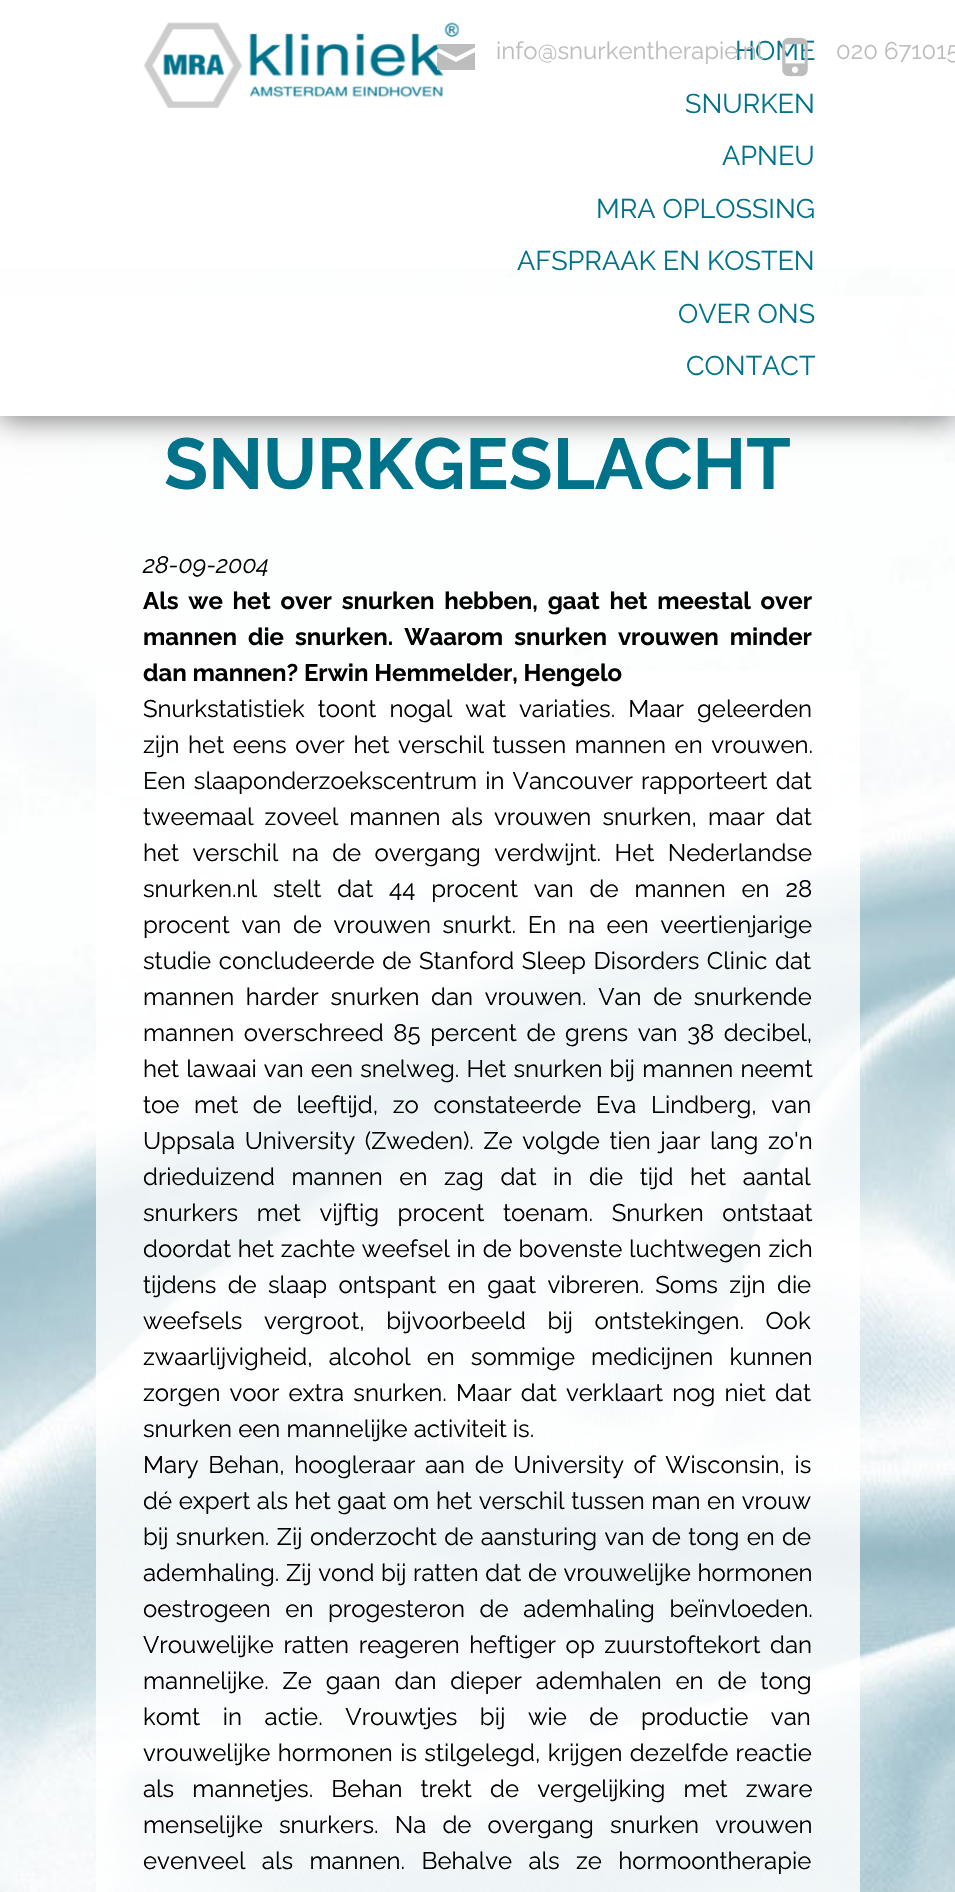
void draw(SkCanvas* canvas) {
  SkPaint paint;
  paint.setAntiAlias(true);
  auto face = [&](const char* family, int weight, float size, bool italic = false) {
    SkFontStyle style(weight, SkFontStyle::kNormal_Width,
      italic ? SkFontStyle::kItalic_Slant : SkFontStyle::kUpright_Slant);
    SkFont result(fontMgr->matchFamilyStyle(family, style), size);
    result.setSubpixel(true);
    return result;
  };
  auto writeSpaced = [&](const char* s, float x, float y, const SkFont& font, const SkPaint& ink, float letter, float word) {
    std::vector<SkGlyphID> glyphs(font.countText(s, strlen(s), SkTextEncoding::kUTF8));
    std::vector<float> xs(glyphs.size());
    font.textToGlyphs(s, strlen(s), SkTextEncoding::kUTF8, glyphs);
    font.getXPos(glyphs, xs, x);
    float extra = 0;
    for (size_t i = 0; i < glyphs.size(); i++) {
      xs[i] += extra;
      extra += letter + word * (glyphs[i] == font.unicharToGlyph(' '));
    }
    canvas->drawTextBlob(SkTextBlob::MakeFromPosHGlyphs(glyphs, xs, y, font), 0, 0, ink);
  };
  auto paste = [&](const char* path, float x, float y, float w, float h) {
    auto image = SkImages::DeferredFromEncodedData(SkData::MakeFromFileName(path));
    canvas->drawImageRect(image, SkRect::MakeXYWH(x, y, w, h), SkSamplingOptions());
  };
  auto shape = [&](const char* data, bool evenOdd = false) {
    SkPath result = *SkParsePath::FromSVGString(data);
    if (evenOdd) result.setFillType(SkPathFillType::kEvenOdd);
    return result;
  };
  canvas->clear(0xffffffff);
  paste("img/3.png", 0, 267, 955, 1625);
  canvas->save();
  canvas->clipPath(shape("M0 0H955V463H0ZM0 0H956V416H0Z", true), true);
  paint.setColor(0x80000000);
  paint.setMaskFilter(SkMaskFilter::MakeBlur(kNormal_SkBlurStyle, 14));
  canvas->drawRect(SkRect::MakeXYWH(0, 5, 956, 415), paint);
  paint.setMaskFilter(nullptr);
  canvas->restore();
  paint.setColor(0xccffffff);
  canvas->drawRect(SkRect::MakeXYWH(0, 296, 955, 120), paint);
  paste("img/1.png", 143, 22, 316, 86);
  paint.setColor(0xffbdbdbd);
  canvas->drawPath(shape("M475 44V47.5L456 57L437 47.5V44ZM456 62L475 52V70H437V52Z"), paint);
  paint.setColor(0xccffffff);
  canvas->drawRect(SkRect::MakeXYWH(96, 671, 764, 1221), paint);
  auto f0 = face("Raleway", 400, 27);
  paint.setColor(0xff00728a);
  {
    const struct { const char* s; float x, y; } items[] = {
      {"HOME", 735, 60},
      {"SNURKEN", 685, 113},
      {"APNEU", 722, 165},
      {"MRA OPLOSSING", 596, 218},
      {"AFSPRAAK EN KOSTEN", 517, 270},
      {"OVER ONS", 678, 323},
      {"CONTACT", 686, 375},
    };
    for (auto [s, x, y] : items) {
      canvas->drawString(s, x, y, f0, paint);
    }
  }
  auto f1 = face("Raleway", 400, 24);
  paint.setColor(0xffbdbdbd);
  canvas->drawString("info@snurkentherapie.nl", 496, 59, f1, paint);
  paste("img/2.png", 782, 37, 26, 40);
  canvas->drawString("020 671015", 836, 59, f1, paint);
  auto f2 = face("Raleway", 700, 72);
  paint.setColor(0xff00728a);
  canvas->drawString("SNURKGESLACHT", 164, 489, f2, paint);
  auto f3 = face("Raleway", 400, 24, true);
  paint.setColor(0xff000000);
  canvas->drawString("28-09-2004", 143, 573, f3, paint);
  auto f4 = face("Raleway", 700, 24);
  writeSpaced("Als we het over snurken hebben, gaat het meestal over", 143, 609, f4, paint, 0, 4);
  writeSpaced("mannen die snurken. Waarom snurken vrouwen minder", 143, 645, f4, paint, 0, 5.25f);
  canvas->drawString("dan mannen? Erwin Hemmelder, Hengelo", 143, 681, f4, paint);
  writeSpaced("Snurkstatistiek toont nogal wat variaties. Maar geleerden", 143, 717, f1, paint, 0, 7);
  writeSpaced("zijn het eens over het verschil tussen mannen en vrouwen.", 143, 753, f1, paint, 0, 2.5f);
  writeSpaced("Een slaaponderzoekscentrum in Vancouver rapporteert dat", 143, 789, f1, paint, 0, 2);
  writeSpaced("tweemaal zoveel mannen als vrouwen snurken, maar dat", 143, 825, f1, paint, 0, 5);
  writeSpaced("het verschil na de overgang verdwijnt. Het Nederlandse", 143, 861, f1, paint, 0, 7.25f);
  writeSpaced("snurken.nl stelt dat 44 procent van de mannen en 28", 143, 897, f1, paint, 0, 9.75f);
  writeSpaced("procent van de vrouwen snurkt. En na een veertienjarige", 143, 933, f1, paint, 0, 5.5f);
  writeSpaced("studie concludeerde de Stanford Sleep Disorders Clinic dat", 143, 969, f1, paint, 0, 1.5f);
  writeSpaced("mannen harder snurken dan vrouwen. Van de snurkende", 143, 1005, f1, paint, 0, 5.5f);
  writeSpaced("mannen overschreed 85 percent de grens van 38 decibel,", 143, 1041, f1, paint, 0, 3.5f);
  writeSpaced("het lawaai van een snelweg. Het snurken bij mannen neemt", 143, 1077, f1, paint, 0, 1);
  writeSpaced("toe met de leeftijd, zo constateerde Eva Lindberg, van", 143, 1113, f1, paint, 0, 8.5f);
  writeSpaced("Uppsala University (Zweden). Ze volgde tien jaar lang zo'n", 143, 1149, f1, paint, 0, 3.5f);
  writeSpaced("drieduizend mannen en zag dat in die tijd het aantal", 143, 1185, f1, paint, 0, 10.5f);
  writeSpaced("snurkers met vijftig procent toenam. Snurken ontstaat", 143, 1221, f1, paint, 0, 12.5f);
  writeSpaced("doordat het zachte weefsel in de bovenste luchtwegen zich", 143, 1257, f1, paint, 0, 0.75f);
  writeSpaced("tijdens de slaap ontspant en gaat vibreren. Soms zijn die", 143, 1293, f1, paint, 0, 5.25f);
  writeSpaced("weefsels vergroot, bijvoorbeeld bij ontstekingen. Ook", 143, 1329, f1, paint, 0, 15.5f);
  writeSpaced("zwaarlijvigheid, alcohol en sommige medicijnen kunnen", 143, 1365, f1, paint, 0, 10);
  writeSpaced("zorgen voor extra snurken. Maar dat verklaart nog niet dat", 143, 1401, f1, paint, 0, 3);
  canvas->drawString("snurken een mannelijke activiteit is.", 143, 1437, f1, paint);
  writeSpaced("Mary Behan, hoogleraar aan de University of Wisconsin, is", 143, 1473, f1, paint, 0, 3.5f);
  writeSpaced("dé expert als het gaat om het verschil tussen man en vrouw", 143, 1509, f1, paint, 0, 0.5f);
  writeSpaced("bij snurken. Zij onderzocht de aansturing van de tong en de", 143, 1545, f1, paint, 0, 1.25f);
  writeSpaced("ademhaling. Zij vond bij ratten dat de vrouwelijke hormonen", 143, 1581, f1, paint, 0, 0.5f);
  writeSpaced("oestrogeen en progesteron de ademhaling beïnvloeden.", 143, 1617, f1, paint, 0, 8.5f);
  writeSpaced("Vrouwelijke ratten reageren heftiger op zuurstoftekort dan", 143, 1653, f1, paint, 0, 3.5f);
  writeSpaced("mannelijke. Ze gaan dan dieper ademhalen en de tong", 143, 1689, f1, paint, 0, 7.75f);
  writeSpaced("komt in actie. Vrouwtjes bij wie de productie van", 143, 1725, f1, paint, 0, 16.5f);
  writeSpaced("vrouwelijke hormonen is stilgelegd, krijgen dezelfde reactie", 143, 1761, f1, paint, 0, 1.25f);
  writeSpaced("als mannetjes. Behan trekt de vergelijking met zware", 143, 1797, f1, paint, 0, 12);
  writeSpaced("menselijke snurkers. Na de overgang snurken vrouwen", 143, 1833, f1, paint, 0, 10);
  writeSpaced("evenveel als mannen. Behalve als ze hormoontherapie", 143, 1869, f1, paint, 0, 10.25f);
}
